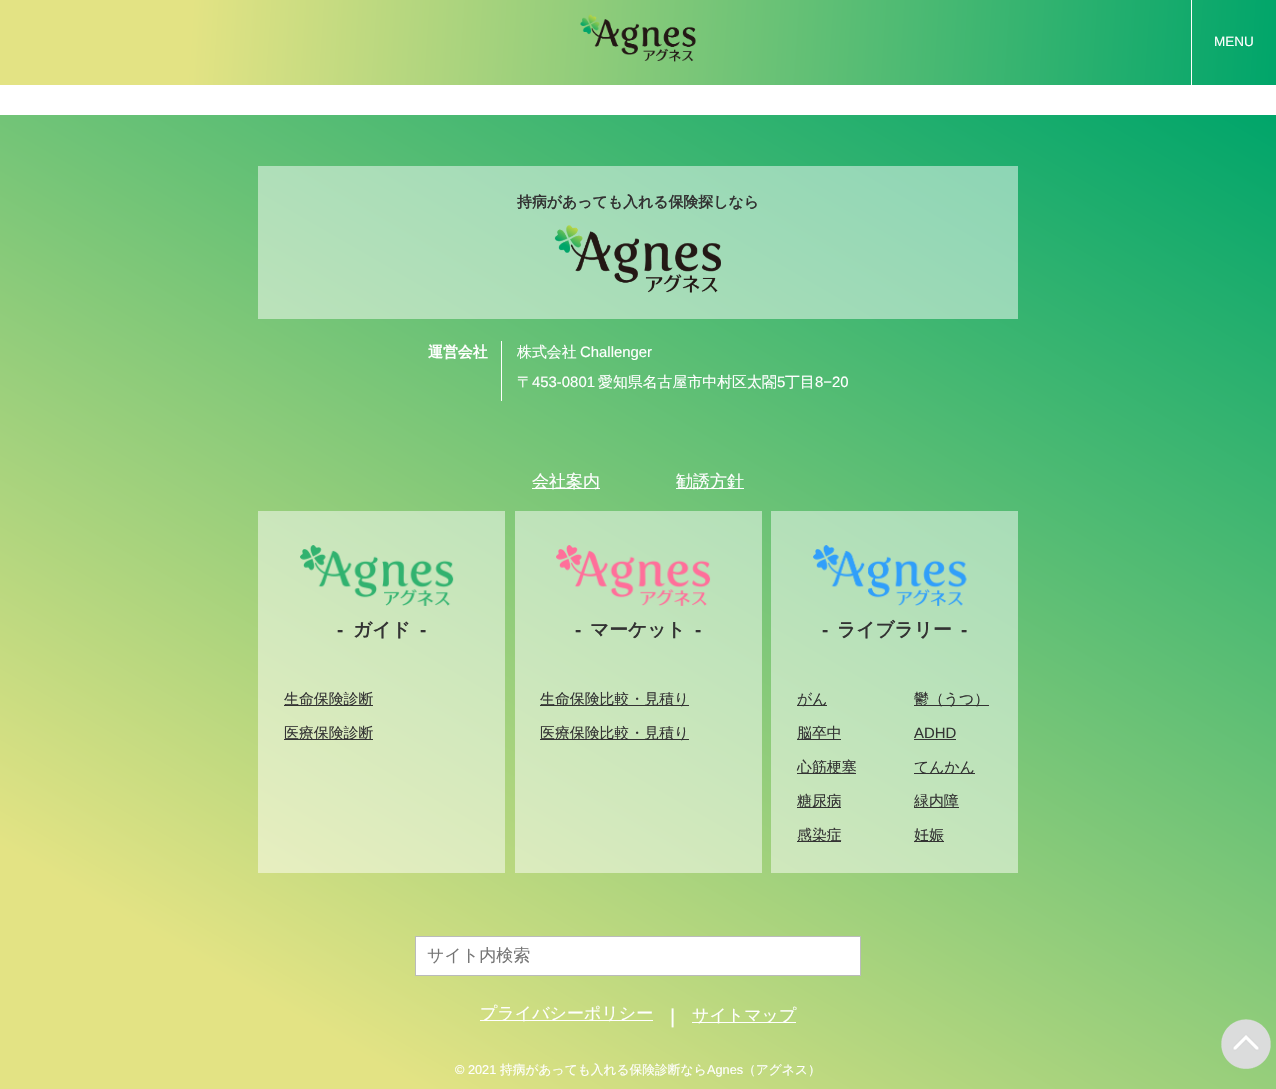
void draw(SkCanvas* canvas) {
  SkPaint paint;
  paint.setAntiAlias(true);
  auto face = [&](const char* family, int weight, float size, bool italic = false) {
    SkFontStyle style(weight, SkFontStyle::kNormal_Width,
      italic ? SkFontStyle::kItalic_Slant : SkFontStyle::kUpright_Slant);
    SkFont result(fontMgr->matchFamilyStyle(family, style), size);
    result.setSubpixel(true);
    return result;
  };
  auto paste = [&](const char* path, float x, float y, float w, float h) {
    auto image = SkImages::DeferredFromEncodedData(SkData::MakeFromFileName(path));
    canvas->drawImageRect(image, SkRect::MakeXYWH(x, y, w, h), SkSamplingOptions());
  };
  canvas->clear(0xffffffff);
  {
    const SkColor colors[] = {0xffe3e384, 0xff00a56a};
    const float stops[] = {0.15f, 1};
    const SkPoint ends[] = {{0.1f, -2.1f}, {1276, 87}};
    paint.setShader(SkGradientShader::MakeLinear(ends, colors, stops, 2, SkTileMode::kClamp));
    paint.setAlpha(255);
  }
  canvas->drawRect(SkRect::MakeXYWH(0, 0, 1276, 85), paint);
  paste("img/1.png", 580, 14, 116, 48);
  paint.setShader(nullptr);
  paint.setColor(0xffffffff);
  canvas->drawRect(SkRect::MakeXYWH(1191, 0, 1, 85), paint);
  {
    const SkColor colors[] = {0xffe3e384, 0xff00a56a};
    const float stops[] = {0.15f, 1};
    const SkPoint ends[] = {{264, 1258}, {1012, -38}};
    paint.setShader(SkGradientShader::MakeLinear(ends, colors, stops, 2, SkTileMode::kClamp));
    paint.setAlpha(255);
  }
  canvas->drawRect(SkRect::MakeXYWH(0, 115, 1276, 974), paint);
  {
    const SkColor colors[] = {0xfff1f1c0, 0xff7dd1b3};
    const float stops[] = {0.15f, 1};
    const SkPoint ends[] = {{264, 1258}, {1012, -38}};
    paint.setShader(SkGradientShader::MakeLinear(ends, colors, stops, 2, SkTileMode::kClamp));
    paint.setAlpha(255);
  }
  canvas->drawRect(SkRect::MakeXYWH(771, 511, 247, 362), paint);
  canvas->drawRect(SkRect::MakeXYWH(515, 511, 247, 362), paint);
  canvas->drawRect(SkRect::MakeXYWH(258, 511, 247, 362), paint);
  canvas->drawRect(SkRect::MakeXYWH(258, 166, 760, 153), paint);
  paste("img/2.png", 554, 225, 167, 68);
  paint.setShader(nullptr);
  {
    const struct { float x, y, w, h; SkColor color; } items[] = {
      {501, 341, 1, 60, 0xffffffff},
      {532, 488, 68, 1, 0xffffffff},
      {676, 488, 68, 1, 0xffffffff},
    };
    for (auto [x, y, w, h, color] : items) {
      paint.setColor(color);
      canvas->drawRect(SkRect::MakeXYWH(x, y, w, h), paint);
    }
  }
  paste("img/3.png", 300, 545, 154, 61);
  paint.setColor(0xff333333);
  canvas->drawRect(SkRect::MakeXYWH(284, 705, 89, 1), paint);
  canvas->drawRect(SkRect::MakeXYWH(284, 739, 89, 1), paint);
  paste("img/4.png", 556, 545, 155, 61);
  canvas->drawRect(SkRect::MakeXYWH(540, 705, 149, 1), paint);
  canvas->drawRect(SkRect::MakeXYWH(540, 739, 149, 1), paint);
  paste("img/5.png", 813, 545, 154, 61);
  {
    const struct { float x, y, w, h; SkColor color; } items[] = {
      {797, 705, 30, 1, 0xff333333},
      {914, 705, 75, 1, 0xff333333},
      {797, 739, 44, 1, 0xff333333},
      {914, 739, 42, 1, 0xff333333},
      {797, 773, 59, 1, 0xff333333},
      {914, 773, 61, 1, 0xff333333},
      {797, 807, 44, 1, 0xff333333},
      {914, 807, 45, 1, 0xff333333},
      {797, 841, 44, 1, 0xff333333},
      {914, 841, 30, 1, 0xff333333},
    };
    for (auto [x, y, w, h, color] : items) {
      paint.setColor(color);
      canvas->drawRect(SkRect::MakeXYWH(x, y, w, h), paint);
    }
  }
  paint.setColor(0xffffffff);
  canvas->drawRect(SkRect::MakeXYWH(415.5f, 936.5f, 445, 39), paint);
  paint.setStroke(true);
  paint.setStrokeWidth(1);
  paint.setColor(0xffbabbbb);
  canvas->drawRect(SkRect::MakeXYWH(415.5f, 936.5f, 445, 39), paint);
  paint.setStroke(false);
  paint.setColor(0xffffffff);
  canvas->drawRect(SkRect::MakeXYWH(480, 1020, 173, 1), paint);
  canvas->drawRect(SkRect::MakeXYWH(692, 1022, 104, 1), paint);
  paste("img/6.png", 1221, 1019, 50, 50);
  auto f0 = face("Liberation Sans", 400, 13.5f);
  canvas->drawString("MENU", 1214, 46, f0, paint);
  auto f1 = face("WenQuanYi Zen Hei", 700, 14.9f);
  paint.setColor(0xff333333);
  canvas->drawString("持病があっても入れる保険探しなら", 517, 207, f1, paint);
  paint.setColor(0xffffffff);
  canvas->drawString("運営会社", 428, 357, f1, paint);
  auto f2 = face("WenQuanYi Zen Hei", 500, 14.9f);
  canvas->drawString("株式会社", 517, 357, f2, paint);
  auto f3 = face("Liberation Sans", 400, 14.9f);
  canvas->drawString("Challenger", 580, 357, f3, paint);
  canvas->drawString("〒", 517, 387, f2, paint);
  canvas->drawString("453-0801", 532, 387, f3, paint);
  canvas->drawString("愛知県名古屋市中村区太閤", 598, 387, f2, paint);
  canvas->drawString("5", 777, 387, f3, paint);
  canvas->drawString("丁目", 785, 387, f2, paint);
  canvas->drawString("8−20", 815, 387, f3, paint);
  auto f4 = face("WenQuanYi Zen Hei", 500, 17);
  canvas->drawString("会社案内", 532, 487, f4, paint);
  canvas->drawString("勧誘方針", 676, 487, f4, paint);
  auto f5 = face("Liberation Sans", 700, 18.75f);
  paint.setColor(0xff333333);
  canvas->drawString("-", 337, 636, f5, paint);
  auto f6 = face("WenQuanYi Zen Hei", 700, 18.75f);
  canvas->drawString("ガイド", 353, 636, f6, paint);
  canvas->drawString("-", 420, 636, f5, paint);
  canvas->drawString("生命保険診断", 284, 704, f2, paint);
  canvas->drawString("医療保険診断", 284, 738, f2, paint);
  canvas->drawString("-", 575, 636, f5, paint);
  canvas->drawString("マーケット", 590, 636, f6, paint);
  canvas->drawString("-", 695, 636, f5, paint);
  canvas->drawString("生命保険比較・見積り", 540, 704, f2, paint);
  canvas->drawString("医療保険比較・見積り", 540, 738, f2, paint);
  canvas->drawString("-", 822, 636, f5, paint);
  canvas->drawString("ライブラリー", 837, 636, f6, paint);
  canvas->drawString("-", 961, 636, f5, paint);
  {
    const struct { const char* s; float x, y; } items[] = {
      {"がん", 797, 704},
      {"鬱（うつ）", 914, 704},
      {"脳卒中", 797, 738},
    };
    for (auto [s, x, y] : items) {
      canvas->drawString(s, x, y, f2, paint);
    }
  }
  canvas->drawString("ADHD", 914, 738, f3, paint);
  {
    const struct { const char* s; float x, y; } items[] = {
      {"心筋梗塞", 797, 772},
      {"てんかん", 914, 772},
      {"糖尿病", 797, 806},
      {"緑内障", 914, 806},
      {"感染症", 797, 840},
      {"妊娠", 914, 840},
    };
    for (auto [s, x, y] : items) {
      canvas->drawString(s, x, y, f2, paint);
    }
  }
  paint.setColor(0xff757575);
  canvas->drawString("サイト内検索", 427, 961, f4, paint);
  paint.setColor(0xffffffff);
  canvas->drawString("プライバシーポリシー", 480, 1019, f4, paint);
  auto f7 = face("Liberation Sans", 400, 20);
  canvas->drawString("|", 670, 1023, f7, paint);
  canvas->drawString("サイトマップ", 692, 1021, f4, paint);
  auto f8 = face("Liberation Sans", 400, 12.75f);
  canvas->drawString("© 2021", 455, 1074, f8, paint);
  auto f9 = face("WenQuanYi Zen Hei", 500, 12.75f);
  canvas->drawString("持病があっても入れる保険診断なら", 500, 1074, f9, paint);
  canvas->drawString("Agnes", 707, 1074, f8, paint);
  canvas->drawString("（アグネス）", 743, 1074, f9, paint);
}
